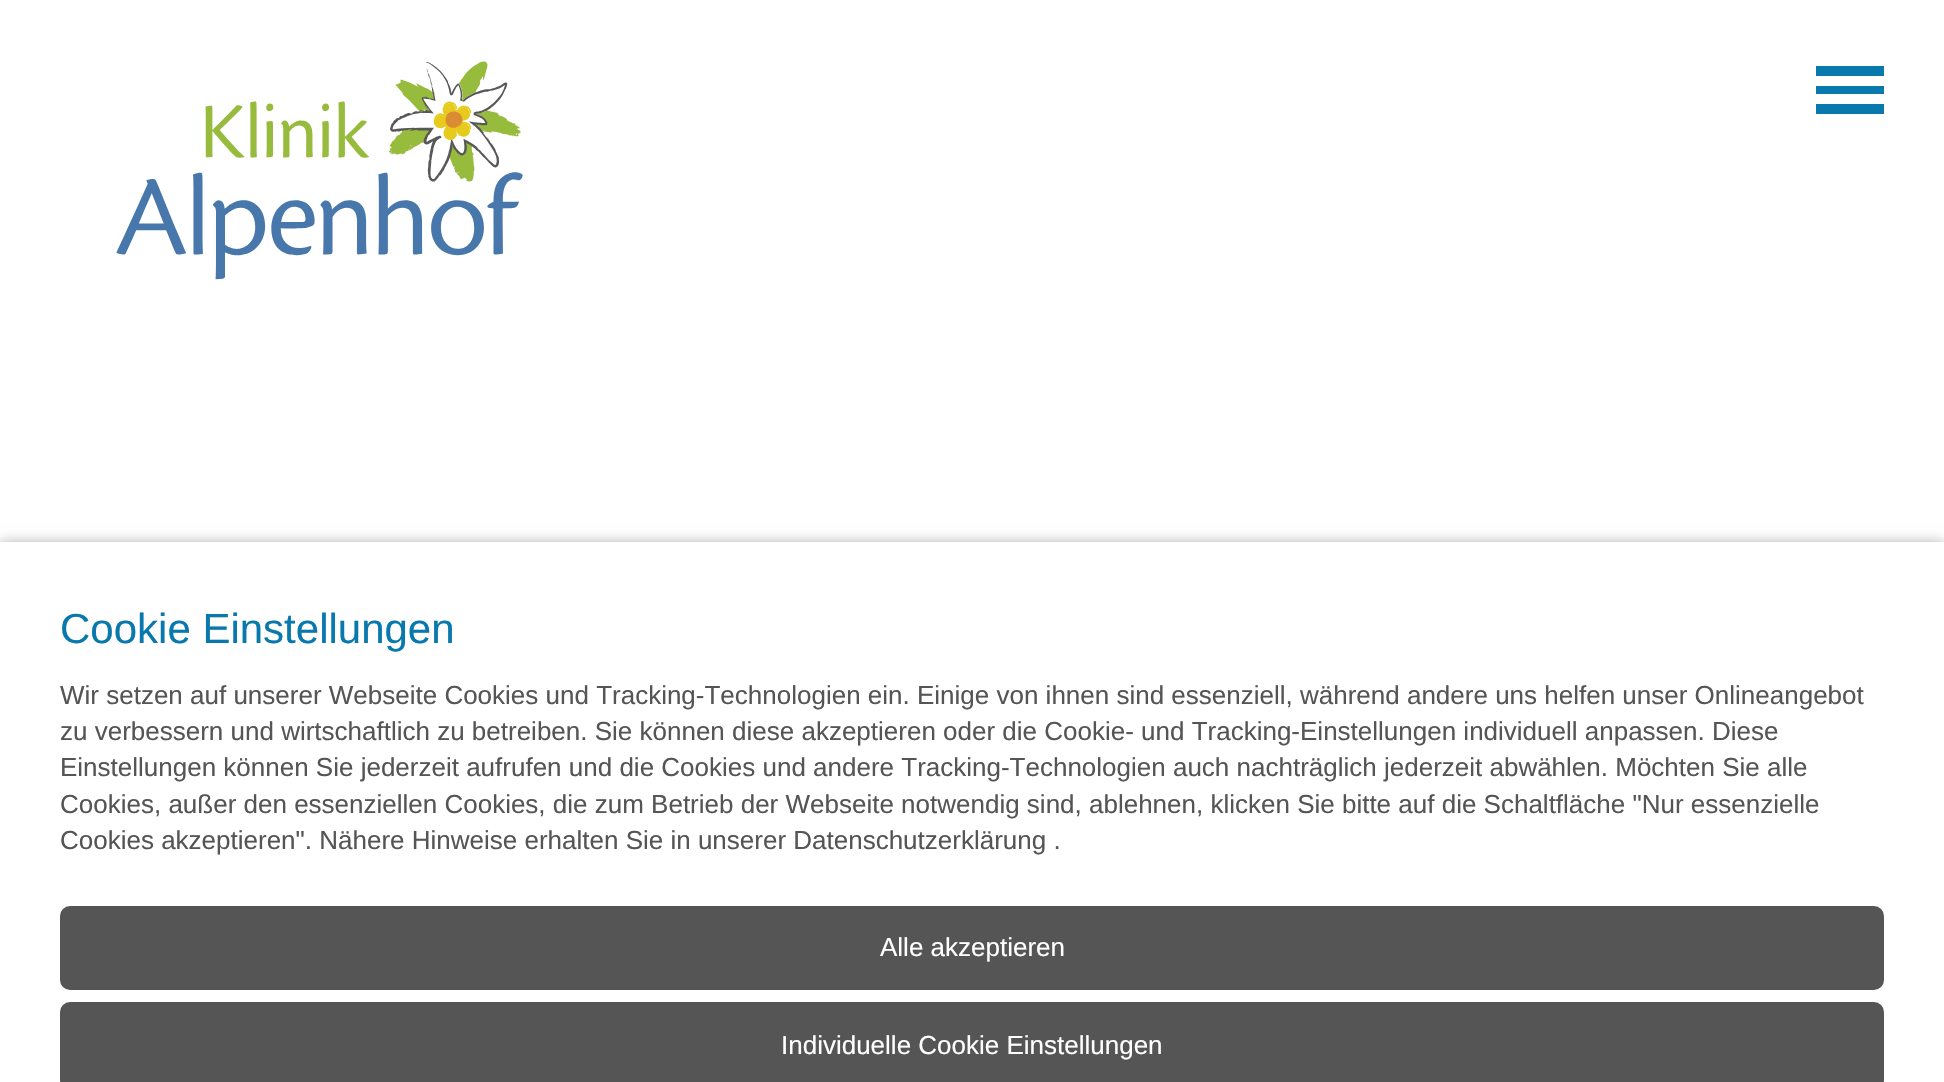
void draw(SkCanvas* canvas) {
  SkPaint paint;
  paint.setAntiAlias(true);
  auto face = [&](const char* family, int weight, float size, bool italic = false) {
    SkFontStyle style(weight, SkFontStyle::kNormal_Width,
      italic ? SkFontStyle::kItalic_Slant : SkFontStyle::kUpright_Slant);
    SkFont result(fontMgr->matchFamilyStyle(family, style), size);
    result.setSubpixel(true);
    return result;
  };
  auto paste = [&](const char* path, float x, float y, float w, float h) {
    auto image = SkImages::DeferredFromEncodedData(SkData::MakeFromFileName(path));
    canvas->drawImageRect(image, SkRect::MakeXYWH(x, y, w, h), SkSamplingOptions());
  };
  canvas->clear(0xffffffff);
  paste("img/1.png", 116, 61, 407, 219);
  {
    const struct { float x, y, w, h; SkColor color; } items[] = {
      {1816, 66, 68, 10, 0xff0978ac},
      {1816, 86, 68, 8, 0xff0978ac},
      {1816, 104, 68, 10, 0xff0978ac},
    };
    for (auto [x, y, w, h, color] : items) {
      paint.setColor(color);
      canvas->drawRect(SkRect::MakeXYWH(x, y, w, h), paint);
    }
  }
  paint.setColor(0x4d000000);
  paint.setMaskFilter(SkMaskFilter::MakeBlur(kNormal_SkBlurStyle, 6));
  canvas->drawRect(SkRect::MakeXYWH(0, 542, 1944, 540), paint);
  paint.setMaskFilter(nullptr);
  paint.setColor(0xffffffff);
  canvas->drawRect(SkRect::MakeXYWH(0, 542, 1944, 540), paint);
  paint.setColor(0xff555555);
  canvas->drawRoundRect(SkRect::MakeXYWH(61, 907, 1822, 82), 9, 9, paint);
  paint.setStroke(true);
  paint.setStrokeWidth(2);
  canvas->drawRoundRect(SkRect::MakeXYWH(61, 907, 1822, 82), 9, 9, paint);
  paint.setStroke(false);
  canvas->drawRoundRect(SkRect::MakeXYWH(61, 1003, 1822, 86), 9, 9, paint);
  paint.setStroke(true);
  canvas->drawRoundRect(SkRect::MakeXYWH(61, 1003, 1822, 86), 9, 9, paint);
  auto f0 = face("Arimo", 400, 42);
  paint.setStroke(false);
  paint.setColor(0xff0978ac);
  canvas->drawString("Cookie Einstellungen", 60, 643, f0, paint);
  auto f1 = face("Arimo", 400, 26);
  paint.setColor(0xff555555);
  {
    const struct { const char* s; float x, y; } items[] = {
      {"Wir setzen auf unserer Webseite Cookies und Tracking-Technologien ein. Einige von ihnen sind essenziell, während andere uns helfen unser Onlineangebot", 60, 704},
      {"zu verbessern und wirtschaftlich zu betreiben. Sie können diese akzeptieren oder die Cookie- und Tracking-Einstellungen individuell anpassen. Diese", 60, 740},
      {"Einstellungen können Sie jederzeit aufrufen und die Cookies und andere Tracking-Technologien auch nachträglich jederzeit abwählen. Möchten Sie alle", 60, 776},
      {"Cookies, außer den essenziellen Cookies, die zum Betrieb der Webseite notwendig sind, ablehnen, klicken Sie bitte auf die Schaltfläche \"Nur essenzielle", 60, 813},
      {"Cookies akzeptieren\". Nähere Hinweise erhalten Sie in unserer Datenschutzerklärung .", 60, 849},
    };
    for (auto [s, x, y] : items) {
      canvas->drawString(s, x, y, f1, paint);
    }
  }
  auto f2 = face("Liberation Sans", 400, 26);
  paint.setColor(0xffffffff);
  canvas->drawString("Alle akzeptieren", 880, 956, f2, paint);
  canvas->drawString("Individuelle Cookie Einstellungen", 781, 1054, f1, paint);
}
